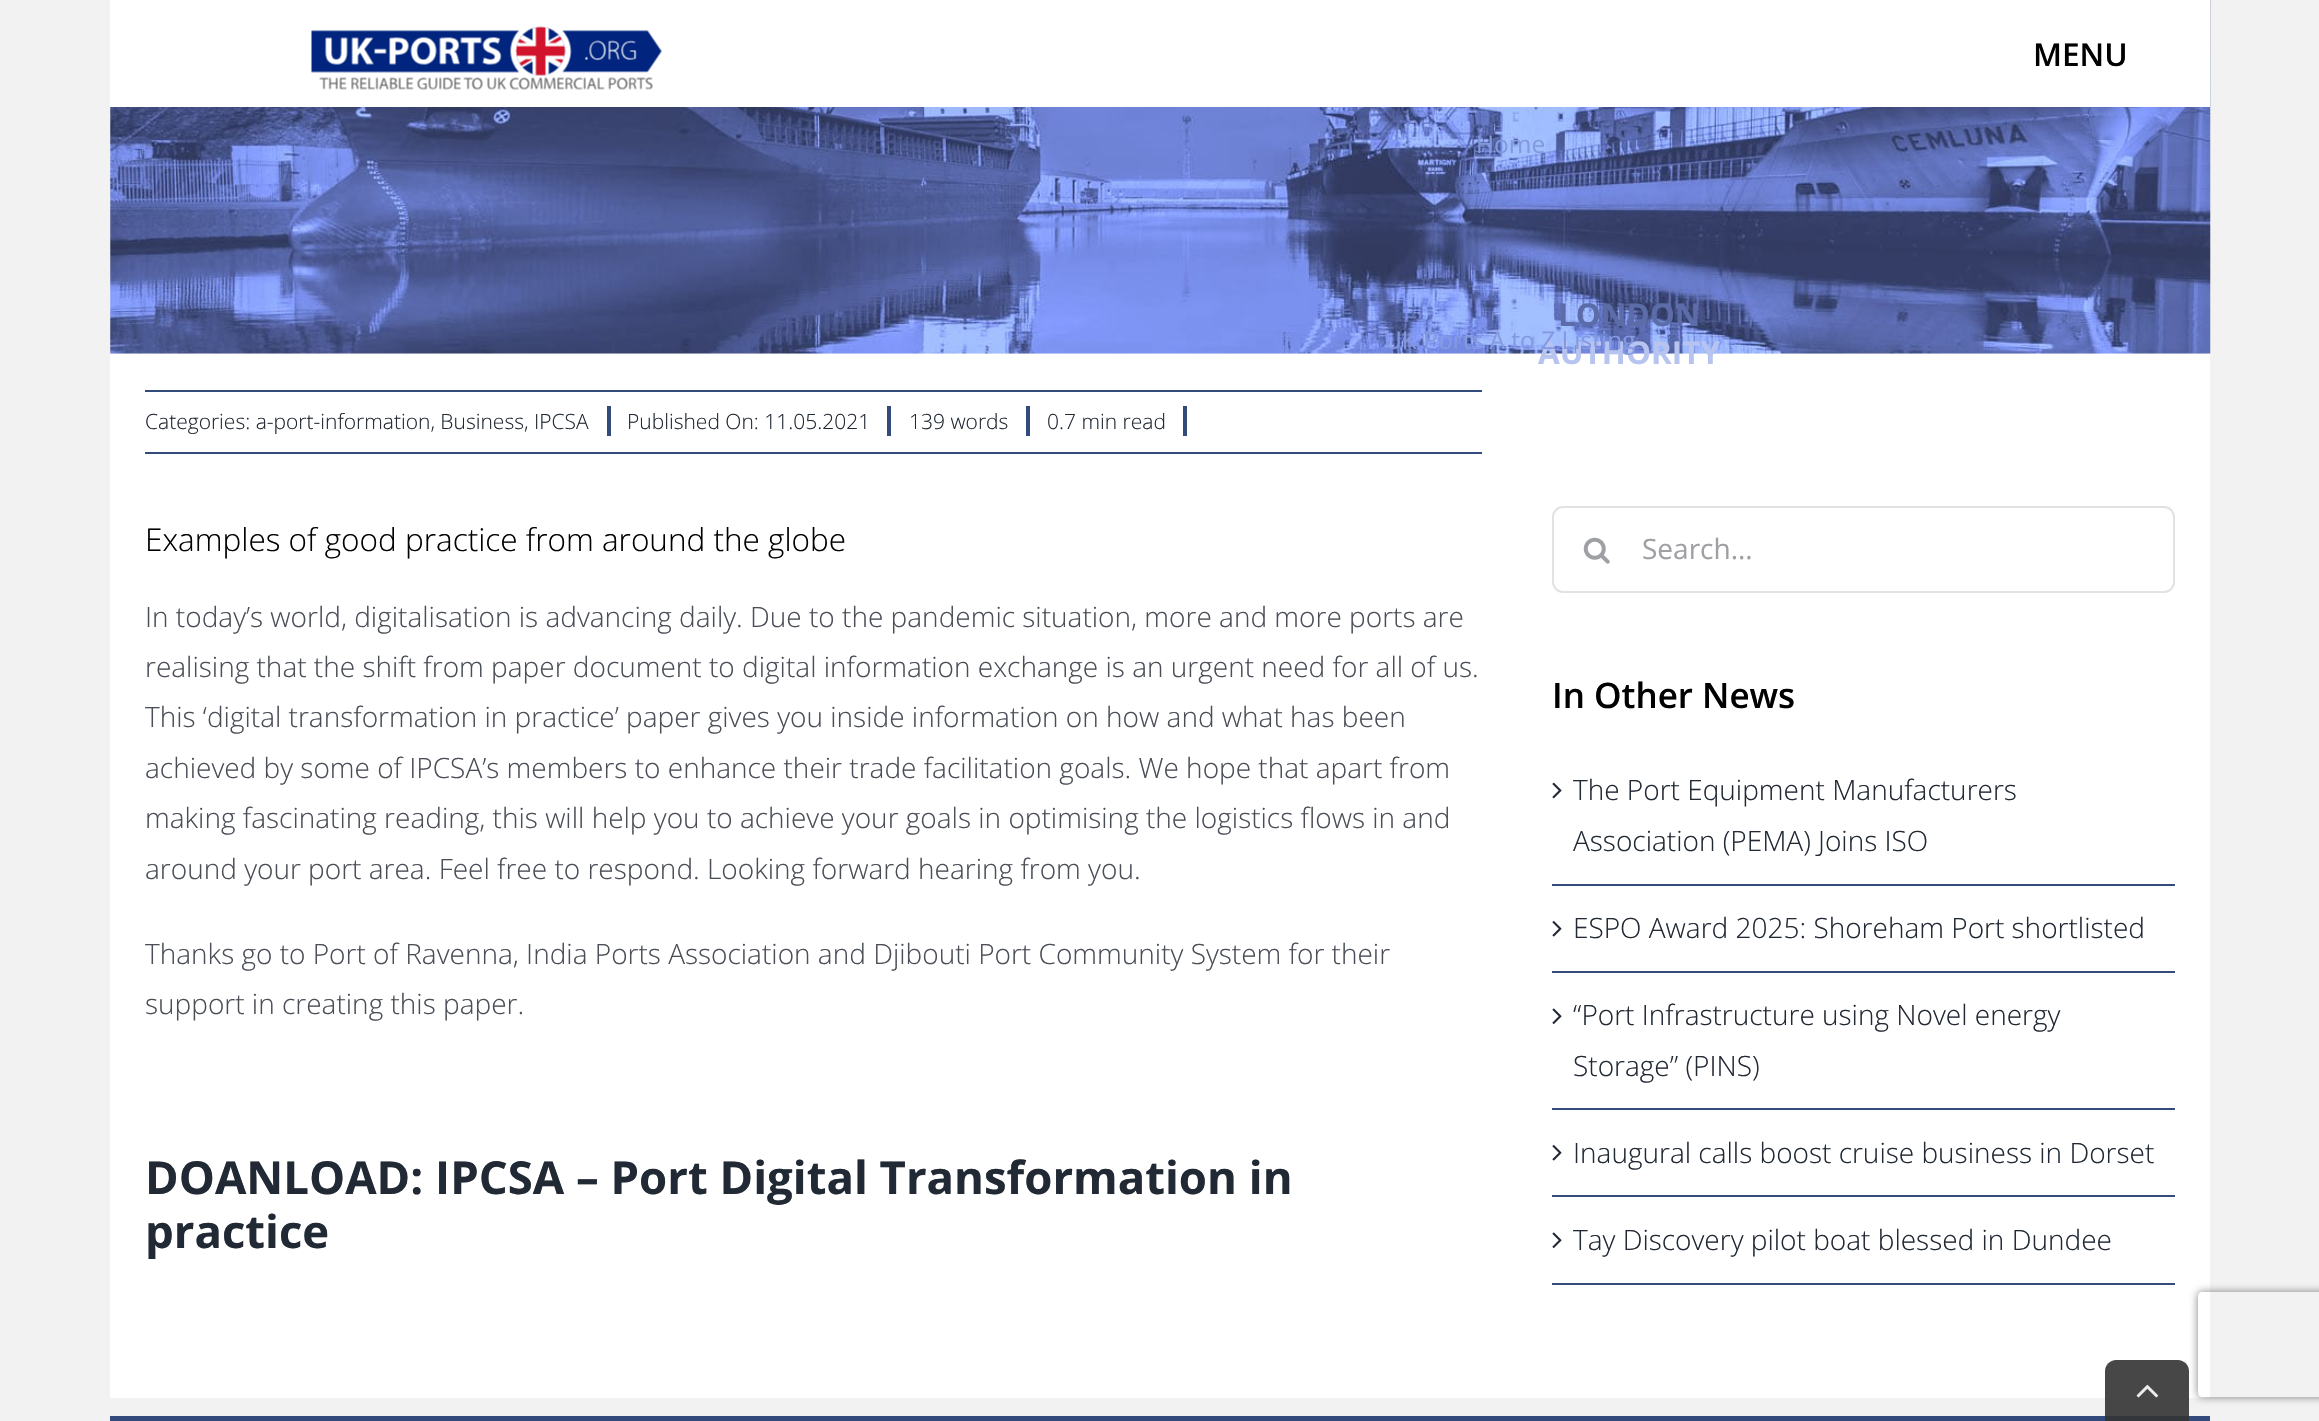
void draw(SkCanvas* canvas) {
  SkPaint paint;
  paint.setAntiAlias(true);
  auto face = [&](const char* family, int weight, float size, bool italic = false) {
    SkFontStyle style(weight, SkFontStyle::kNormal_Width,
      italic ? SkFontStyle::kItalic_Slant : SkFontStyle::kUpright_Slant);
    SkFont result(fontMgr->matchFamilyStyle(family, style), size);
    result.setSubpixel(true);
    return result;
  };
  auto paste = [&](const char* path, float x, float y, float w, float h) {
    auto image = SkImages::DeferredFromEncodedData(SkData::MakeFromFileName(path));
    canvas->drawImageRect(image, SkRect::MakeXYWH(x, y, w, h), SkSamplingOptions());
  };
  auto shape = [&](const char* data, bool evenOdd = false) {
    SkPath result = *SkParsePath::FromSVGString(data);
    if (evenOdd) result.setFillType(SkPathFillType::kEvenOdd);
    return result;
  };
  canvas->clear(0xfff2f2f2);
  paste("img/1.png", 110, 0, 2101, 354);
  paint.setColor(0xffffffff);
  canvas->drawRect(SkRect::MakeXYWH(110, 0, 2100, 107), paint);
  paste("img/2.png", 311, 26, 351, 64);
  {
    const struct { float x, y, w, h; SkColor color; } items[] = {
      {110, 354, 2100, 1044, 0xffffffff},
      {145, 390, 1337, 2, 0xff334a7c},
      {145, 452, 1337, 2, 0xff334a7c},
      {607, 406, 4, 30, 0xff334a7c},
      {887, 406, 4, 30, 0xff334a7c},
      {1026, 406, 4, 30, 0xff334a7c},
      {1183, 406, 4, 30, 0xff334a7c},
    };
    for (auto [x, y, w, h, color] : items) {
      paint.setColor(color);
      canvas->drawRect(SkRect::MakeXYWH(x, y, w, h), paint);
    }
  }
  paint.setStroke(true);
  paint.setStrokeWidth(2);
  paint.setColor(0xffe2e2e2);
  canvas->drawRoundRect(SkRect::MakeXYWH(1553, 507, 621, 85), 10, 10, paint);
  paste("img/3.png", 1583, 537, 27, 27);
  paint.setStroke(false);
  paint.setColor(0xff334a7c);
  canvas->drawRect(SkRect::MakeXYWH(1552, 884, 623, 2), paint);
  paste("img/4.png", 1552, 782, 10, 17);
  canvas->drawRect(SkRect::MakeXYWH(1552, 971, 623, 2), paint);
  paste("img/5.png", 1552, 921, 10, 16);
  canvas->drawRect(SkRect::MakeXYWH(1552, 1108, 623, 2), paint);
  paste("img/6.png", 1552, 1008, 10, 16);
  canvas->drawRect(SkRect::MakeXYWH(1552, 1195, 623, 2), paint);
  paste("img/5.png", 1552, 1145, 10, 16);
  canvas->drawRect(SkRect::MakeXYWH(1552, 1283, 623, 2), paint);
  paste("img/6.png", 1552, 1232, 10, 16);
  canvas->drawRect(SkRect::MakeXYWH(110, 1416, 2100, 5), paint);
  canvas->save();
  canvas->clipPath(shape("M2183 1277H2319V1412H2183ZM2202 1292H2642C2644 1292 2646 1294 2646 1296V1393C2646 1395 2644 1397 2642 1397H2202C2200 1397 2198 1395 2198 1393V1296C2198 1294 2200 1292 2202 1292Z", true), true);
  paint.setColor(0xff808080);
  paint.setMaskFilter(SkMaskFilter::MakeBlur(kNormal_SkBlurStyle, 4.5f));
  canvas->drawRoundRect(SkRect::MakeXYWH(2198, 1292, 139, 105), 4, 4, paint);
  paint.setMaskFilter(nullptr);
  canvas->restore();
  paint.setColor(0xe6333333);
  canvas->drawPath(shape("M2116 1360H2178C2184 1360 2189 1365 2189 1371V1421H2105V1371C2105 1365 2110 1360 2116 1360Z"), paint);
  paste("img/7.png", 2136, 1384, 22, 14);
  auto f0 = face("Open Sans", 600, 31.5f);
  paint.setColor(0xff000000);
  canvas->drawString("MENU", 2033, 66, f0, paint);
  auto f1 = face("Open Sans", 400, 24.5f);
  paint.setColor(0xff829adb);
  canvas->drawString("Home", 1476, 153, f1, paint);
  auto f2 = face("Open Sans", 700, 31.5f);
  paint.setColor(0xff5c6ca8);
  canvas->drawString("LONDON", 1558, 326, f2, paint);
  paint.setColor(0xffb7c4ef);
  canvas->drawString("AUTHORITY", 1538, 364, f2, paint);
  paint.setColor(0xff8499e2);
  canvas->drawString("UK Ports A to Z Listing", 1384, 349, f1, paint);
  auto f3 = face("Open Sans", 300, 21);
  paint.setColor(0xff212934);
  {
    const struct { const char* s; float x, y; } items[] = {
      {"Categories: a-port-information, Business, IPCSA", 145, 429},
      {"Published On: 11.05.2021", 627, 429},
      {"139 words", 909, 429},
      {"0.7 min read", 1047, 429},
    };
    for (auto [s, x, y] : items) {
      canvas->drawString(s, x, y, f3, paint);
    }
  }
  auto f4 = face("Open Sans", 300, 31.5f);
  paint.setColor(0xff000000);
  canvas->drawString("Examples of good practice from around the globe", 145, 551, f4, paint);
  auto f5 = face("Open Sans", 300, 28);
  paint.setColor(0xff4a4e57);
  {
    const struct { const char* s; float x, y; } items[] = {
      {"In today’s world, digitalisation is advancing daily. Due to the pandemic situation, more and more ports are", 145, 627},
      {"realising that the shift from paper document to digital information exchange is an urgent need for all of us.", 145, 677},
      {"This ‘digital transformation in practice’ paper gives you inside information on how and what has been", 145, 727},
      {"achieved by some of IPCSA’s members to enhance their trade facilitation goals. We hope that apart from", 145, 778},
      {"making fascinating reading, this will help you to achieve your goals in optimising the logistics flows in and", 145, 828},
      {"around your port area. Feel free to respond. Looking forward hearing from you.", 145, 879},
      {"Thanks go to Port of Ravenna, India Ports Association and Djibouti Port Community System for their", 145, 964},
      {"support in creating this paper.", 145, 1014},
    };
    for (auto [s, x, y] : items) {
      canvas->drawString(s, x, y, f5, paint);
    }
  }
  auto f6 = face("Open Sans", 700, 45.5f);
  paint.setColor(0xff212934);
  canvas->drawString("DOANLOAD: IPCSA – Port Digital Transformation in", 145, 1194, f6, paint);
  canvas->drawString("practice", 145, 1248, f6, paint);
  auto f7 = face("Open Sans", 400, 28);
  paint.setColor(0xff9ea0a4);
  canvas->drawString("Search...", 1642, 559, f7, paint);
  auto f8 = face("Open Sans", 600, 35);
  paint.setColor(0xff000000);
  canvas->drawString("In Other News", 1552, 708, f8, paint);
  paint.setColor(0xff212934);
  {
    const struct { const char* s; float x, y; } items[] = {
      {"The Port Equipment Manufacturers", 1573, 800},
      {"Association (PEMA) Joins ISO", 1573, 851},
      {"ESPO Award 2025: Shoreham Port shortlisted", 1573, 938},
      {"“Port Infrastructure using Novel energy", 1573, 1025},
      {"Storage” (PINS)", 1573, 1076},
      {"Inaugural calls boost cruise business in Dorset", 1573, 1163},
      {"Tay Discovery pilot boat blessed in Dundee", 1573, 1250},
    };
    for (auto [s, x, y] : items) {
      canvas->drawString(s, x, y, f5, paint);
    }
  }
}
